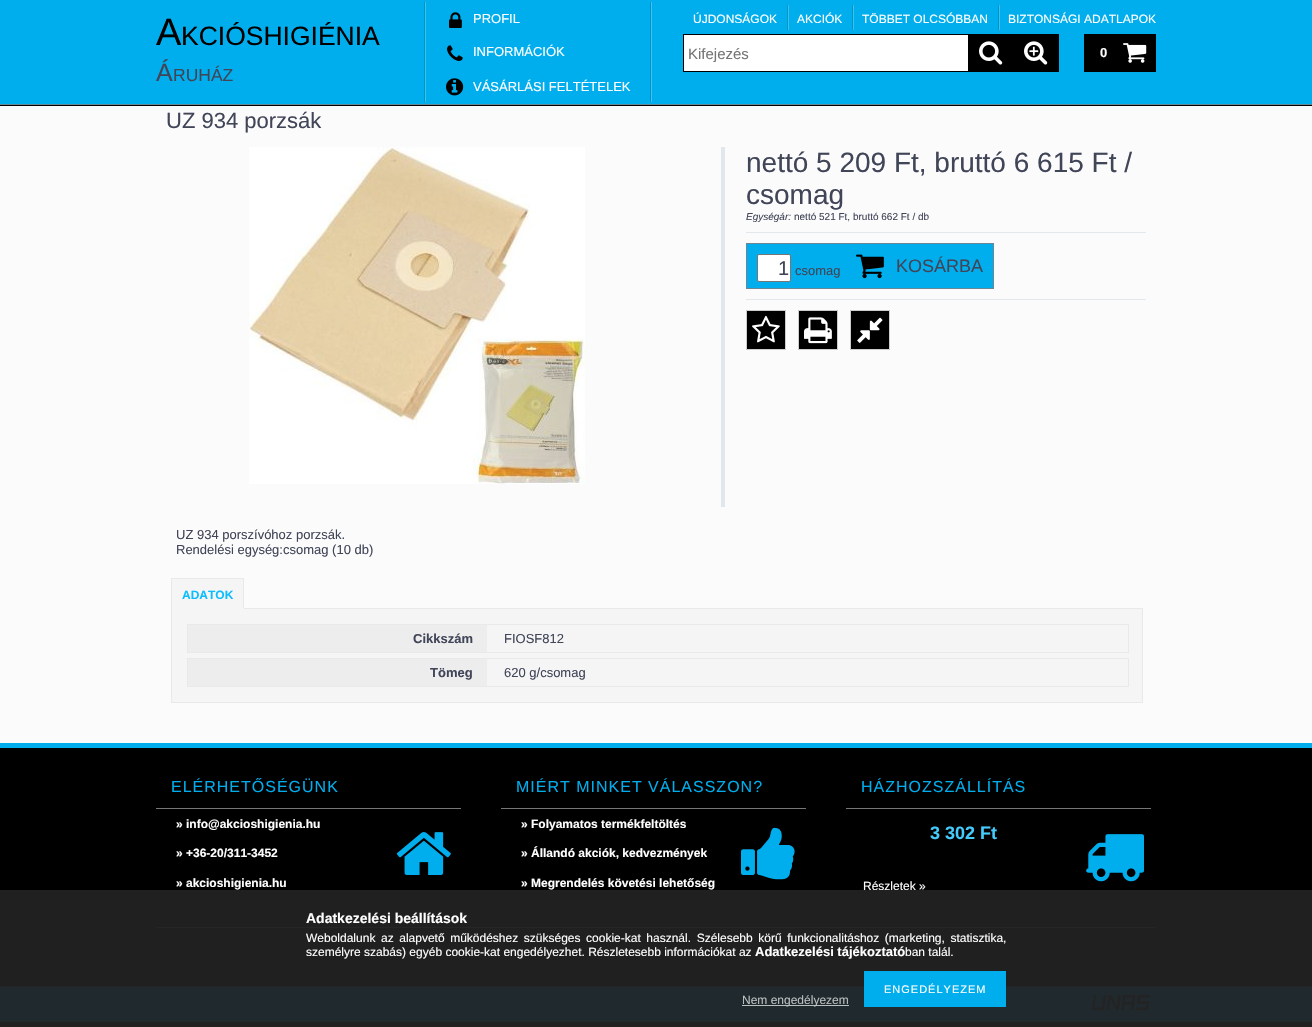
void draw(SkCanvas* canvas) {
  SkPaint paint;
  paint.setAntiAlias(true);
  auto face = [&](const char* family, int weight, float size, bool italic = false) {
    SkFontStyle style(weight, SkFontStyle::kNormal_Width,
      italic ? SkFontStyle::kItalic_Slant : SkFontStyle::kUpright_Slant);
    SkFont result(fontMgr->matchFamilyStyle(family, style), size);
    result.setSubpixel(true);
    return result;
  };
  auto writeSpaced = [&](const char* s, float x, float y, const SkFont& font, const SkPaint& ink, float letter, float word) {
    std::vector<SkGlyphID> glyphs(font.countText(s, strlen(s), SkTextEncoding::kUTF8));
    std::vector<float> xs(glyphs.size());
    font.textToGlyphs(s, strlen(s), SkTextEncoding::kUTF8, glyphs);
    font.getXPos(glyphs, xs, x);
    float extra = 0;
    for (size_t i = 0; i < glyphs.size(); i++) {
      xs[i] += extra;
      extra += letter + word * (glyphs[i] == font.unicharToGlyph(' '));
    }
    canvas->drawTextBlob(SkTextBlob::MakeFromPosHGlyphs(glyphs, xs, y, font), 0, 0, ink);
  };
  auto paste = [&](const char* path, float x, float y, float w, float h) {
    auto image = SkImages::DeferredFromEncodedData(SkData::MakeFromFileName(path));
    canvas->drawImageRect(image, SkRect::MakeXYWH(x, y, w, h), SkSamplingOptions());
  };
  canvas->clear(0xfffbfbfb);
  {
    const struct { float x, y, w, h; SkColor color; } items[] = {
      {0, 0, 1312, 104, 0xff00aeed},
      {0, 105, 1312, 1, 0xff000100},
      {0, 104, 1312, 1, 0xff6d8696},
    };
    for (auto [x, y, w, h, color] : items) {
      paint.setColor(color);
      canvas->drawRect(SkRect::MakeXYWH(x, y, w, h), paint);
    }
  }
  paste("img/1.png", 424, 2, 2, 100);
  paste("img/1.png", 650, 2, 2, 100);
  paste("img/2.png", 449, 12, 13, 16);
  paste("img/3.png", 447, 45, 16, 16);
  paste("img/4.png", 446, 78, 18, 18);
  paste("img/5.png", 787, 5, 2, 25);
  paste("img/5.png", 852, 5, 2, 25);
  paste("img/5.png", 998, 5, 2, 25);
  paint.setColor(0xffffffff);
  canvas->drawRect(SkRect::MakeXYWH(684, 35, 284, 36), paint);
  paint.setStroke(true);
  paint.setStrokeWidth(1);
  paint.setColor(0xff000000);
  canvas->drawRect(SkRect::MakeXYWH(683.5f, 34.5f, 375, 37), paint);
  paint.setStroke(false);
  canvas->drawRect(SkRect::MakeXYWH(968, 35, 90, 36), paint);
  paste("img/6.png", 979, 41, 24, 24);
  paste("img/7.png", 1024, 41, 24, 24);
  canvas->drawRect(SkRect::MakeXYWH(1084, 34, 72, 38), paint);
  paste("img/8.png", 1123, 43, 24, 20);
  paste("img/9.png", 249, 147, 336, 337);
  {
    const struct { float x, y, w, h; SkColor color; } items[] = {
      {721, 147, 4, 360, 0xffe1e8ed},
      {746, 232, 400, 1, 0xffe1e8ed},
      {746, 299, 400, 1, 0xffe1e8ed},
    };
    for (auto [x, y, w, h, color] : items) {
      paint.setColor(color);
      canvas->drawRect(SkRect::MakeXYWH(x, y, w, h), paint);
    }
  }
  paint.setStroke(true);
  paint.setColor(0xff6d8696);
  canvas->drawRect(SkRect::MakeXYWH(746.5f, 243.5f, 247, 45), paint);
  paint.setStroke(false);
  paint.setColor(0xff00aeed);
  canvas->drawRect(SkRect::MakeXYWH(747, 244, 246, 44), paint);
  paint.setColor(0xffffffff);
  canvas->drawRoundRect(SkRect::MakeXYWH(757.5f, 254.5f, 33, 27), 1.5f, 1.5f, paint);
  paint.setStroke(true);
  paint.setColor(0xff767676);
  canvas->drawRoundRect(SkRect::MakeXYWH(757.5f, 254.5f, 33, 27), 1.5f, 1.5f, paint);
  paste("img/10.png", 856, 254, 28, 25);
  paint.setStroke(false);
  paint.setColor(0xff000000);
  canvas->drawRect(SkRect::MakeXYWH(746.5f, 310.5f, 39, 39), paint);
  paint.setStroke(true);
  paint.setColor(0xffcccccc);
  canvas->drawRect(SkRect::MakeXYWH(746.5f, 310.5f, 39, 39), paint);
  paste("img/11.png", 752, 315, 28, 28);
  paint.setStroke(false);
  paint.setColor(0xff000000);
  canvas->drawRect(SkRect::MakeXYWH(798.5f, 310.5f, 39, 39), paint);
  paint.setStroke(true);
  paint.setColor(0xffcccccc);
  canvas->drawRect(SkRect::MakeXYWH(798.5f, 310.5f, 39, 39), paint);
  paste("img/12.png", 804, 317, 28, 27);
  paint.setStroke(false);
  paint.setColor(0xff000000);
  canvas->drawRect(SkRect::MakeXYWH(850.5f, 310.5f, 39, 39), paint);
  paint.setStroke(true);
  paint.setColor(0xffcccccc);
  canvas->drawRect(SkRect::MakeXYWH(850.5f, 310.5f, 39, 39), paint);
  paste("img/13.png", 857, 317, 26, 26);
  paint.setStroke(false);
  paint.setColor(0xfff5f5f5);
  canvas->drawRect(SkRect::MakeXYWH(172, 579, 71, 29), paint);
  paint.setColor(0xffe9e9e7);
  canvas->drawRect(SkRect::MakeXYWH(171, 578, 73, 1), paint);
  paint.setColor(0xfff5f5f5);
  canvas->drawRect(SkRect::MakeXYWH(171.5f, 608.5f, 971, 94), paint);
  paint.setStroke(true);
  paint.setColor(0xffe9e9e7);
  canvas->drawRect(SkRect::MakeXYWH(171.5f, 608.5f, 971, 94), paint);
  paint.setStroke(false);
  {
    const struct { float x, y, w, h; SkColor color; } items[] = {
      {243, 578, 1, 31, 0xffe9e9e7},
      {171, 608, 73, 1, 0xfff5f5f5},
      {171, 578, 1, 31, 0xffe9e9e7},
    };
    for (auto [x, y, w, h, color] : items) {
      paint.setColor(color);
      canvas->drawRect(SkRect::MakeXYWH(x, y, w, h), paint);
    }
  }
  paint.setStroke(true);
  canvas->drawRect(SkRect::MakeXYWH(187.5f, 624.5f, 941, 28), paint);
  paint.setStroke(false);
  paint.setColor(0xffededed);
  canvas->drawRect(SkRect::MakeXYWH(188, 625, 299, 27), paint);
  paint.setStroke(true);
  paint.setColor(0xffe9e9e7);
  canvas->drawRect(SkRect::MakeXYWH(187.5f, 658.5f, 941, 28), paint);
  paint.setStroke(false);
  {
    const struct { float x, y, w, h; SkColor color; } items[] = {
      {188, 659, 299, 27, 0xffededed},
      {0, 743, 1312, 5, 0xff00aeed},
      {0, 748, 1312, 238, 0xff000000},
      {0, 986, 1312, 1, 0xff414550},
      {156, 927, 1000, 1, 0xff777676},
      {156, 808, 305, 1, 0xff777676},
    };
    for (auto [x, y, w, h, color] : items) {
      paint.setColor(color);
      canvas->drawRect(SkRect::MakeXYWH(x, y, w, h), paint);
    }
  }
  paste("img/14.png", 396, 832, 55, 43);
  canvas->drawRect(SkRect::MakeXYWH(501, 808, 305, 1), paint);
  paste("img/15.png", 741, 827, 54, 53);
  canvas->drawRect(SkRect::MakeXYWH(846, 808, 305, 1), paint);
  paste("img/16.png", 1086, 834, 58, 48);
  paint.setColor(0xff00aeed);
  canvas->drawRect(SkRect::MakeXYWH(0, 987, 1312, 35), paint);
  paste("img/17.png", 1091, 995, 60, 15);
  paint.setColor(0xff000000);
  canvas->drawRect(SkRect::MakeXYWH(0, 1022, 1312, 5), paint);
  auto f0 = face("Liberation Sans", 400, 38);
  canvas->drawString("A", 156, 45, f0, paint);
  auto f1 = face("Liberation Sans", 400, 26.5f);
  canvas->drawString("KCIÓSHIGIÉNIA", 181, 45, f1, paint);
  auto f2 = face("Liberation Sans", 400, 25);
  paint.setColor(0xff414558);
  canvas->drawString("Á", 156, 81, f2, paint);
  auto f3 = face("Liberation Sans", 400, 17.5f);
  canvas->drawString("RUHÁZ", 173, 81, f3, paint);
  auto f4 = face("Liberation Sans", 400, 13);
  paint.setColor(0xffffffff);
  {
    const struct { const char* s; float x, y; } items[] = {
      {"PROFIL", 473, 23},
      {"INFORMÁCIÓK", 473, 56},
      {"VÁSÁRLÁSI FELTÉTELEK", 473, 91},
    };
    for (auto [s, x, y] : items) {
      canvas->drawString(s, x, y, f4, paint);
    }
  }
  auto f5 = face("Liberation Sans", 400, 12);
  {
    const struct { const char* s; float x, y; } items[] = {
      {"ÚJDONSÁGOK", 693, 23},
      {"AKCIÓK", 797, 23},
      {"TÖBBET OLCSÓBBAN", 862, 23},
      {"BIZTONSÁGI ADATLAPOK", 1008, 23},
    };
    for (auto [s, x, y] : items) {
      canvas->drawString(s, x, y, f5, paint);
    }
  }
  auto f6 = face("Liberation Sans", 400, 15);
  paint.setColor(0xff757575);
  canvas->drawString("Kifejezés", 688, 59, f6, paint);
  auto f7 = face("Liberation Sans", 700, 13);
  paint.setColor(0xffffffff);
  canvas->drawString("0", 1100, 57, f7, paint);
  auto f8 = face("Liberation Sans", 400, 22);
  paint.setColor(0xff414558);
  canvas->drawString("UZ 934 porzsák", 166, 128, f8, paint);
  auto f9 = face("Liberation Sans", 400, 28);
  canvas->drawString("nettó 5 209 Ft, bruttó 6 615 Ft /", 746, 172, f9, paint);
  canvas->drawString("csomag", 746, 204, f9, paint);
  auto f10 = face("Liberation Sans", 400, 10, true);
  canvas->drawString("Egységár:", 746, 220, f10, paint);
  auto f11 = face("Liberation Sans", 400, 10);
  canvas->drawString("nettó 521 Ft, bruttó 662 Ft / db", 794, 220, f11, paint);
  auto f12 = face("Liberation Sans", 400, 20);
  canvas->drawString("1", 778, 275, f12, paint);
  canvas->drawString("csomag", 795, 275, f4, paint);
  auto f13 = face("Liberation Sans", 400, 18);
  canvas->drawString("KOSÁRBA", 896, 272, f13, paint);
  canvas->drawString("UZ 934 porszívóhoz porzsák.", 176, 539, f4, paint);
  canvas->drawString("Rendelési egység:csomag (10 db)", 176, 554, f4, paint);
  auto f14 = face("Liberation Sans", 700, 12);
  paint.setColor(0xff0dbefe);
  canvas->drawString("ADATOK", 182, 599, f14, paint);
  paint.setColor(0xff414558);
  canvas->drawString("Cikkszám", 413, 643, f7, paint);
  canvas->drawString("FIOSF812", 504, 643, f4, paint);
  canvas->drawString("Tömeg", 430, 677, f7, paint);
  canvas->drawString("620 g/csomag", 504, 677, f4, paint);
  auto f15 = face("Liberation Sans", 400, 16);
  paint.setColor(0xff00aeed);
  writeSpaced("ELÉRHETŐSÉGÜNK", 171, 792, f15, paint, 1, 0);
  paint.setColor(0xffffffff);
  {
    const struct { const char* s; float x, y; } items[] = {
      {"» info@akcioshigienia.hu", 176, 828},
      {"» +36-20/311-3452", 176, 857},
      {"» akcioshigienia.hu", 176, 887},
    };
    for (auto [s, x, y] : items) {
      canvas->drawString(s, x, y, f14, paint);
    }
  }
  paint.setColor(0xff00aeed);
  writeSpaced("MIÉRT MINKET VÁLASSZON?", 516, 792, f15, paint, 1, 0);
  paint.setColor(0xffffffff);
  {
    const struct { const char* s; float x, y; } items[] = {
      {"» Folyamatos termékfeltöltés", 521, 828},
      {"» Állandó akciók, kedvezmények", 521, 857},
      {"» Megrendelés követési lehetőség", 521, 887},
    };
    for (auto [s, x, y] : items) {
      canvas->drawString(s, x, y, f14, paint);
    }
  }
  paint.setColor(0xff00aeed);
  writeSpaced("HÁZHOZSZÁLLÍTÁS", 861, 792, f15, paint, 1, 0);
  auto f16 = face("Liberation Sans", 700, 18);
  paint.setColor(0xff44cafb);
  canvas->drawString("3 302 Ft", 930, 839, f16, paint);
  paint.setColor(0xffffffff);
  canvas->drawString("Részletek »", 863, 890, f5, paint);
  paint.setColor(0xf2222222);
  canvas->drawRect(SkRect::MakeXYWH(0, 890, 1312, 137), paint);
  auto f17 = face("Liberation Sans", 700, 14);
  paint.setColor(0xffffffff);
  canvas->drawString("Adatkezelési beállítások", 306, 923, f17, paint);
  writeSpaced("Weboldalunk az alapvető működéshez szükséges cookie-kat használ. Szélesebb körű funkcionalitáshoz (marketing, statisztika,", 306, 942, f5, paint, 0, 2.25f);
  canvas->drawString("személyre szabás) egyéb cookie-kat engedélyezhet. Részletesebb információkat az", 306, 956, f5, paint);
  canvas->drawString("Adatkezelési tájékoztató", 755, 956, f7, paint);
  canvas->drawString("ban talál.", 905, 956, f5, paint);
  paint.setColor(0xff00aeed);
  canvas->drawRect(SkRect::MakeXYWH(864, 971, 142, 36), paint);
  auto f18 = face("Liberation Sans", 400, 11);
  paint.setColor(0xffffffff);
  writeSpaced("ENGEDÉLYEZEM", 884, 993, f18, paint, 1, 0);
  paint.setColor(0xffbcbfc0);
  canvas->drawRect(SkRect::MakeXYWH(742, 1005, 107, 1), paint);
  canvas->drawString("Nem engedélyezem", 742, 1004, f5, paint);
}
